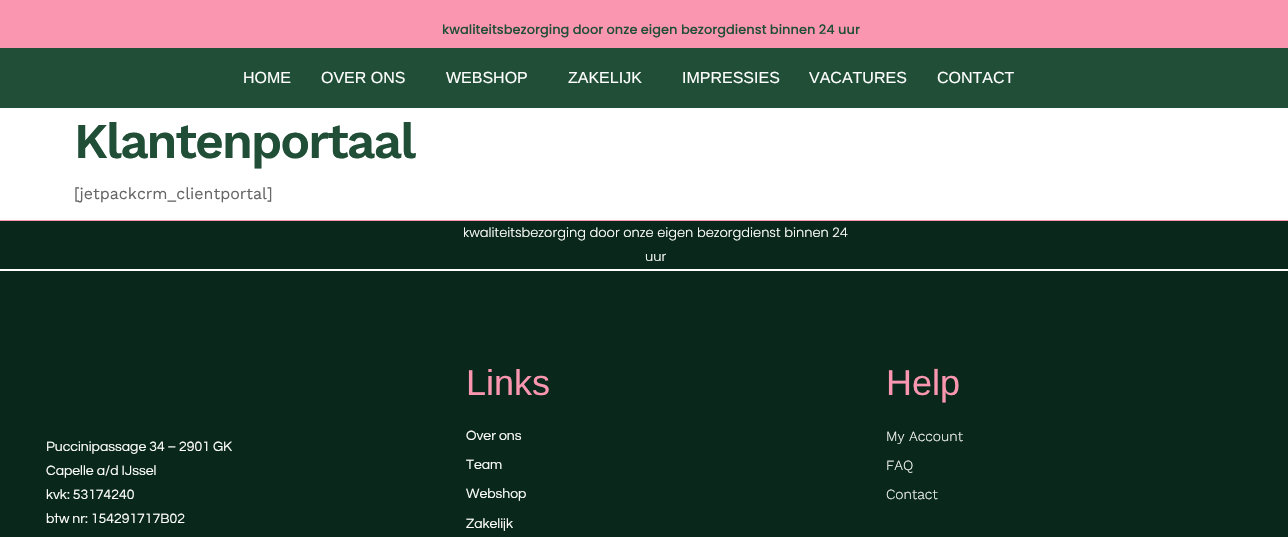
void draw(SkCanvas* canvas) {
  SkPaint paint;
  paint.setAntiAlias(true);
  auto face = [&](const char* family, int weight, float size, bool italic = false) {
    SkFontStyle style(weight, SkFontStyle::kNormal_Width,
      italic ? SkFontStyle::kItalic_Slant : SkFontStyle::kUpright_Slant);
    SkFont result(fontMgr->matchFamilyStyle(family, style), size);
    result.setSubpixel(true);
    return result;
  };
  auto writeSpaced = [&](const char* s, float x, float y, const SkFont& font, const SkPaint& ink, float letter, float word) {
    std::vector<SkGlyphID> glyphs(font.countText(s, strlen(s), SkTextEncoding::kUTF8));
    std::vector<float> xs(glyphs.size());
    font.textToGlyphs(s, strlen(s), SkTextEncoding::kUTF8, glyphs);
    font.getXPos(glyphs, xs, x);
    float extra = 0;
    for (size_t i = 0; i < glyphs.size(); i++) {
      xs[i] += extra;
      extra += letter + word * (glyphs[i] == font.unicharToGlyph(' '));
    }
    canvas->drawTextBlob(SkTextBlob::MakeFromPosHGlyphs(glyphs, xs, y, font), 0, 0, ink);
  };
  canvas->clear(0xffffffff);
  {
    const struct { float x, y, w, h; SkColor color; } items[] = {
      {0, 0, 1288, 48, 0xfffb96b0},
      {0, 48, 1288, 60, 0xff204e36},
      {0, 220, 1288, 1, 0xfffb96b0},
      {0, 221, 1288, 48, 0xff09281b},
      {0, 271, 1288, 266, 0xff09281b},
    };
    for (auto [x, y, w, h, color] : items) {
      paint.setColor(color);
      canvas->drawRect(SkRect::MakeXYWH(x, y, w, h), paint);
    }
  }
  auto f0 = face("Poppins", 500, 13);
  paint.setColor(0xff204e36);
  canvas->drawString("kwaliteitsbezorging door onze eigen bezorgdienst binnen 24 uur", 442, 34, f0, paint);
  auto f1 = face("Liberation Sans", 400, 16);
  paint.setColor(0xffffffff);
  {
    const struct { const char* s; float x, y; } items[] = {
      {"HOME", 243, 83},
      {"OVER ONS", 321, 83},
      {"WEBSHOP", 446, 83},
      {"ZAKELIJK", 568, 83},
      {"IMPRESSIES", 682, 83},
      {"VACATURES", 809, 83},
      {"CONTACT", 937, 83},
    };
    for (auto [s, x, y] : items) {
      canvas->drawString(s, x, y, f1, paint);
    }
  }
  auto f2 = face("Work Sans", 600, 50);
  paint.setColor(0xff204e36);
  writeSpaced("Klantenportaal", 74, 158, f2, paint, -2, 0);
  auto f3 = face("Work Sans", 400, 16);
  paint.setColor(0xff666666);
  canvas->drawString("[jetpackcrm_clientportal]", 74, 199, f3, paint);
  auto f4 = face("Poppins", 300, 13);
  paint.setColor(0xffffffff);
  canvas->drawString("kwaliteitsbezorging door onze eigen bezorgdienst binnen 24", 463, 237, f4, paint);
  canvas->drawString("uur", 645, 261, f4, paint);
  auto f5 = face("Questrial", 400, 14);
  {
    const struct { const char* s; float x, y; } items[] = {
      {"Puccinipassage 34 – 2901 GK", 46, 451},
      {"Capelle a/d IJssel", 46, 475},
      {"kvk: 53174240", 46, 499},
      {"btw nr: 154291717B02", 46, 523},
    };
    for (auto [s, x, y] : items) {
      canvas->drawString(s, x, y, f5, paint);
    }
  }
  auto f6 = face("Liberation Sans", 400, 36);
  paint.setColor(0xfffb96b0);
  canvas->drawString("Links", 466, 395, f6, paint);
  paint.setColor(0xffffffff);
  {
    const struct { const char* s; float x, y; } items[] = {
      {"Over ons", 466, 440},
      {"Team", 466, 469},
      {"Webshop", 466, 498},
      {"Zakelijk", 466, 528},
    };
    for (auto [s, x, y] : items) {
      canvas->drawString(s, x, y, f5, paint);
    }
  }
  paint.setColor(0xfffb96b0);
  canvas->drawString("Help", 886, 395, f6, paint);
  auto f7 = face("Work Sans", 300, 14);
  paint.setColor(0xffffffff);
  {
    const struct { const char* s; float x, y; } items[] = {
      {"My Account", 886, 441},
      {"FAQ", 886, 470},
      {"Contact", 886, 499},
    };
    for (auto [s, x, y] : items) {
      canvas->drawString(s, x, y, f7, paint);
    }
  }
}
